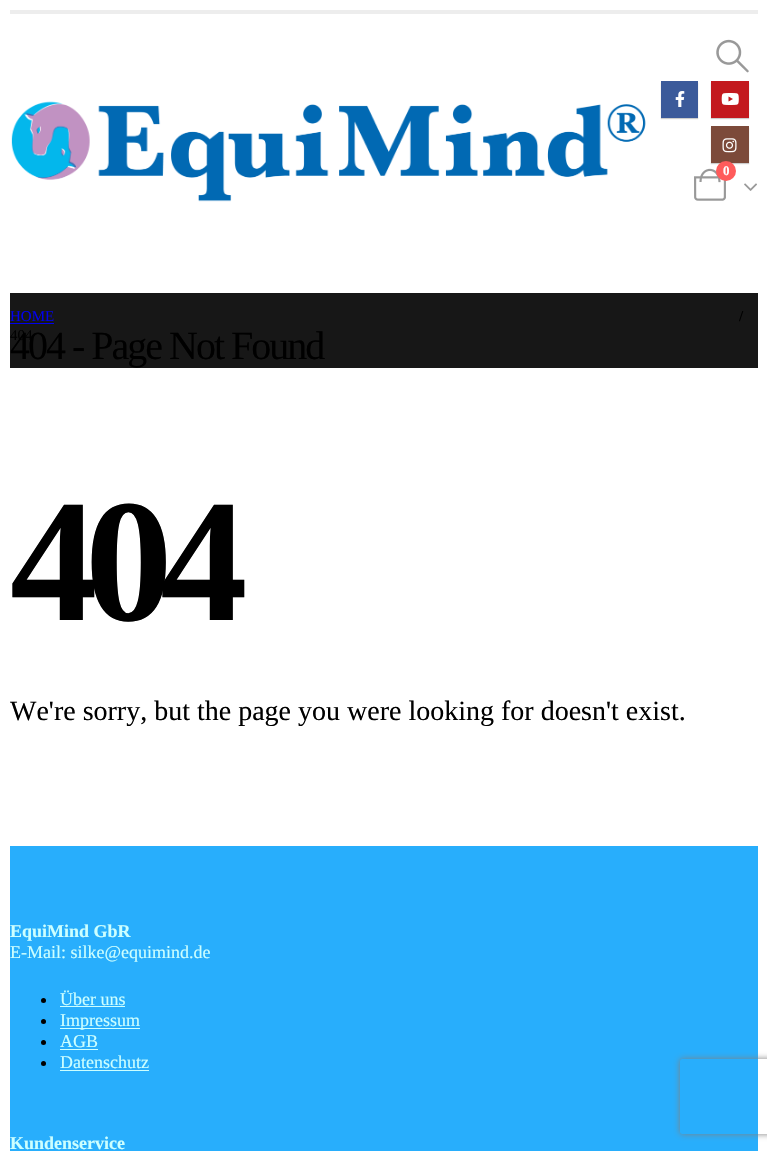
void draw(SkCanvas* canvas) {
  SkPaint paint;
  paint.setAntiAlias(true);
  auto face = [&](const char* family, int weight, float size, bool italic = false) {
    SkFontStyle style(weight, SkFontStyle::kNormal_Width,
      italic ? SkFontStyle::kItalic_Slant : SkFontStyle::kUpright_Slant);
    SkFont result(fontMgr->matchFamilyStyle(family, style), size);
    result.setSubpixel(true);
    return result;
  };
  auto writeSpaced = [&](const char* s, float x, float y, const SkFont& font, const SkPaint& ink, float letter, float word) {
    std::vector<SkGlyphID> glyphs(font.countText(s, strlen(s), SkTextEncoding::kUTF8));
    std::vector<float> xs(glyphs.size());
    font.textToGlyphs(s, strlen(s), SkTextEncoding::kUTF8, glyphs);
    font.getXPos(glyphs, xs, x);
    float extra = 0;
    for (size_t i = 0; i < glyphs.size(); i++) {
      xs[i] += extra;
      extra += letter + word * (glyphs[i] == font.unicharToGlyph(' '));
    }
    canvas->drawTextBlob(SkTextBlob::MakeFromPosHGlyphs(glyphs, xs, y, font), 0, 0, ink);
  };
  auto paste = [&](const char* path, float x, float y, float w, float h) {
    auto image = SkImages::DeferredFromEncodedData(SkData::MakeFromFileName(path));
    canvas->drawImageRect(image, SkRect::MakeXYWH(x, y, w, h), SkSamplingOptions());
  };
  auto shape = [&](const char* data, bool evenOdd = false) {
    SkPath result = *SkParsePath::FromSVGString(data);
    if (evenOdd) result.setFillType(SkPathFillType::kEvenOdd);
    return result;
  };
  canvas->clear(0xffffffff);
  paint.setColor(0xffededed);
  canvas->drawRect(SkRect::MakeXYWH(10, 10, 748, 4), paint);
  paste("img/1.png", 11, 101, 635, 101);
  paste("img/2.png", 716, 39, 33, 34);
  paint.setColor(0x33000000);
  paint.setMaskFilter(SkMaskFilter::MakeBlur(kNormal_SkBlurStyle, 0.5f));
  canvas->drawRect(SkRect::MakeXYWH(661, 83, 37, 36), paint);
  paint.setMaskFilter(nullptr);
  paint.setColor(0xff3b5a9a);
  canvas->drawRect(SkRect::MakeXYWH(661, 81, 37, 37), paint);
  paste("img/3.png", 675, 91, 10, 16);
  paint.setColor(0x33000000);
  paint.setMaskFilter(SkMaskFilter::MakeBlur(kNormal_SkBlurStyle, 0.5f));
  canvas->drawRect(SkRect::MakeXYWH(711, 83, 38, 36), paint);
  paint.setMaskFilter(nullptr);
  paint.setColor(0xffc3191e);
  canvas->drawRect(SkRect::MakeXYWH(711, 81, 38, 37), paint);
  paste("img/4.png", 721, 93, 18, 12);
  paint.setColor(0x33000000);
  paint.setMaskFilter(SkMaskFilter::MakeBlur(kNormal_SkBlurStyle, 0.5f));
  canvas->drawRect(SkRect::MakeXYWH(711, 128, 38, 36), paint);
  paint.setMaskFilter(nullptr);
  paint.setColor(0xff7c4a3a);
  canvas->drawRect(SkRect::MakeXYWH(711, 126, 38, 37), paint);
  paste("img/5.png", 722, 138, 15, 15);
  paste("img/6.png", 694, 168, 32, 33);
  paint.setColor(0xffff5b5b);
  canvas->drawCircle(726, 171, 10, paint);
  paste("img/7.png", 744, 183, 13, 8);
  {
    const struct { float x, y, w, h; SkColor color; } items[] = {
      {10, 293, 748, 75, 0xff171717},
      {10, 323, 44, 1, 0xff0000ee},
      {10, 846, 748, 305, 0xff28aefc},
    };
    for (auto [x, y, w, h, color] : items) {
      paint.setColor(color);
      canvas->drawRect(SkRect::MakeXYWH(x, y, w, h), paint);
    }
  }
  paint.setColor(0xff000000);
  canvas->drawCircle(43.5f, 1000.5f, 2.5f, paint);
  paint.setColor(0xffccffff);
  canvas->drawRect(SkRect::MakeXYWH(60, 1006, 65, 1), paint);
  paint.setColor(0xff000000);
  canvas->drawCircle(43.5f, 1021.5f, 2.5f, paint);
  paint.setColor(0xffccffff);
  canvas->drawRect(SkRect::MakeXYWH(60, 1028, 80, 1), paint);
  paint.setColor(0xff000000);
  canvas->drawCircle(43.5f, 1042.5f, 2.5f, paint);
  paint.setColor(0xffccffff);
  canvas->drawRect(SkRect::MakeXYWH(60, 1049, 38, 1), paint);
  paint.setColor(0xff000000);
  canvas->drawCircle(43.5f, 1063.5f, 2.5f, paint);
  paint.setColor(0xffccffff);
  canvas->drawRect(SkRect::MakeXYWH(60, 1070, 89, 1), paint);
  canvas->save();
  canvas->clipPath(shape("M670 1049H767V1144H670ZM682.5 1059H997.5C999 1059 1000 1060 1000 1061.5V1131.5C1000 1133 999 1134 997.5 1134H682.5C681 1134 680 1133 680 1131.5V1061.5C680 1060 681 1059 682.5 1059Z", true), true);
  paint.setColor(0xff808080);
  paint.setMaskFilter(SkMaskFilter::MakeBlur(kNormal_SkBlurStyle, 3));
  canvas->drawRoundRect(SkRect::MakeXYWH(680, 1059, 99, 75), 2.5f, 2.5f, paint);
  paint.setMaskFilter(nullptr);
  canvas->restore();
  auto f0 = face("Liberation Serif", 700, 13);
  paint.setColor(0xffffffff);
  canvas->drawString("0", 723, 175, f0, paint);
  auto f1 = face("Liberation Serif", 400, 15);
  paint.setColor(0xff0000ee);
  canvas->drawString("HOME", 10, 321, f1, paint);
  auto f2 = face("Liberation Serif", 700, 15);
  paint.setColor(0xff000000);
  canvas->drawString("/", 739, 321, f2, paint);
  canvas->drawString("404", 10, 340, f1, paint);
  auto f3 = face("Liberation Serif", 400, 40);
  writeSpaced("404 - Page Not Found", 10, 359, f3, paint, -2, 0);
  auto f4 = face("Liberation Serif", 700, 175);
  writeSpaced("404", 10, 620, f4, paint, -12.5f, 0);
  auto f5 = face("Liberation Serif", 400, 28);
  canvas->drawString("We're sorry, but the page you were looking for doesn't exist.", 10, 720, f5, paint);
  auto f6 = face("Liberation Serif", 700, 18);
  paint.setColor(0xffccffff);
  canvas->drawString("EquiMind GbR", 10, 937, f6, paint);
  auto f7 = face("Liberation Serif", 400, 18);
  {
    const struct { const char* s; float x, y; } items[] = {
      {"E-Mail: silke@equimind.de", 10, 958},
      {"Über uns", 60, 1005},
      {"Impressum", 60, 1026},
      {"AGB", 60, 1047},
      {"Datenschutz", 60, 1068},
    };
    for (auto [s, x, y] : items) {
      canvas->drawString(s, x, y, f7, paint);
    }
  }
  canvas->drawString("Kundenservice", 10, 1149, f6, paint);
}
